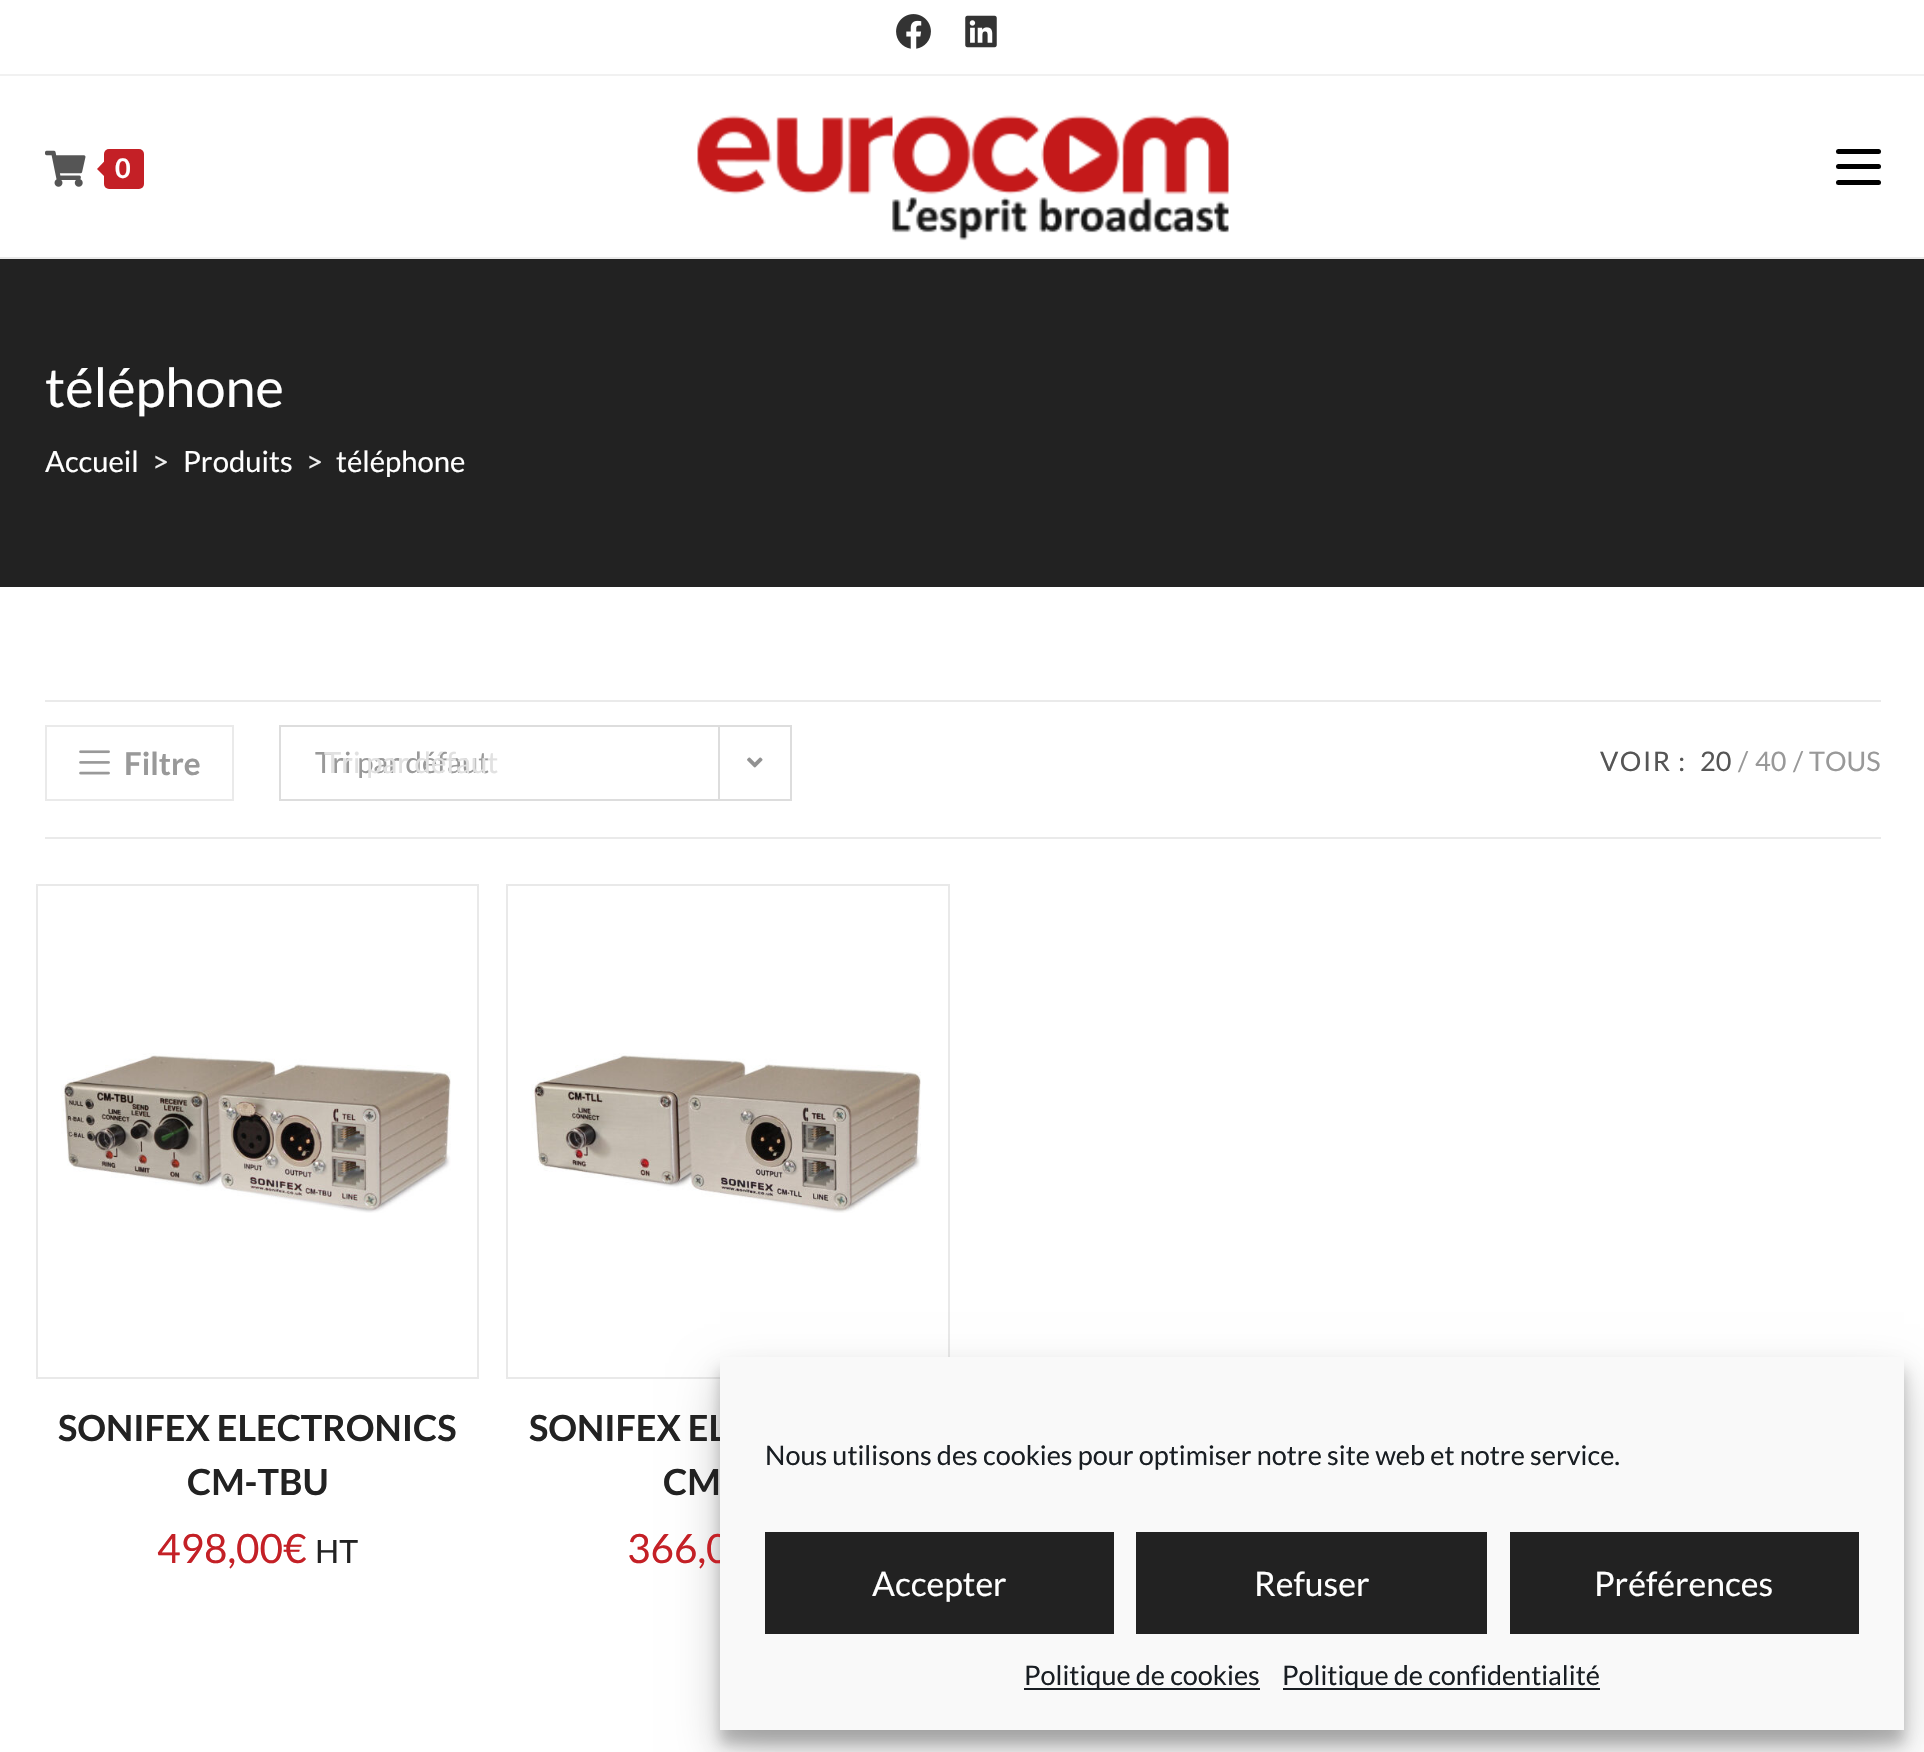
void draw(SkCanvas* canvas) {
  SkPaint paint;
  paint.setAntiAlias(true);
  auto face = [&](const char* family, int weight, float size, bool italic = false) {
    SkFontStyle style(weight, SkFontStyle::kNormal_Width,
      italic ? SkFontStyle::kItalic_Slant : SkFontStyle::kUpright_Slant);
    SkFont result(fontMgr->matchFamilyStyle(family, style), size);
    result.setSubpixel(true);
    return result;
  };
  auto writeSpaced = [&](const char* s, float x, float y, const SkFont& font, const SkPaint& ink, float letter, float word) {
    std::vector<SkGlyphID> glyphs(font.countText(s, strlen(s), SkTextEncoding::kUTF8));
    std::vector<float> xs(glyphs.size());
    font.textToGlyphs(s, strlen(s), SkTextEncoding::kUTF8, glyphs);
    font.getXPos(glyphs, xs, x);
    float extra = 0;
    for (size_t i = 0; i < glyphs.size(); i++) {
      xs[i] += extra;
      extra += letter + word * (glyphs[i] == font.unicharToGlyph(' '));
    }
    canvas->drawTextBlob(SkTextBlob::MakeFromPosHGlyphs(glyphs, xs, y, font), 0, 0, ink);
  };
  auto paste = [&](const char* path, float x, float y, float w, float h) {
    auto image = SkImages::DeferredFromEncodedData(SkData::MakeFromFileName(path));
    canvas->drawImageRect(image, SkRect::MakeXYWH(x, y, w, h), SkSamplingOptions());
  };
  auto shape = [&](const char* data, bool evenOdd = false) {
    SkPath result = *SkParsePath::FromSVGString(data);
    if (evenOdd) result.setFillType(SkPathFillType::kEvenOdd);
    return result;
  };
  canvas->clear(0xffffffff);
  paint.setColor(0xfff1f1f1);
  canvas->drawRect(SkRect::MakeXYWH(0, 74, 1924, 2), paint);
  paste("img/1.png", 896, 14, 35, 35);
  paste("img/2.png", 965, 15, 32, 33);
  paint.setColor(0xffe9e9e9);
  canvas->drawRect(SkRect::MakeXYWH(0, 257, 1924, 2), paint);
  paste("img/3.png", 45, 150, 41, 37);
  paint.setColor(0xffc42026);
  canvas->drawRoundRect(SkRect::MakeXYWH(104, 149, 40, 40), 5, 5, paint);
  canvas->drawPath(shape("M108 157.5V180L97 169Z"), paint);
  paste("img/4.png", 697, 115, 532, 126);
  paint.setColor(0xff000000);
  canvas->drawRoundRect(SkRect::MakeXYWH(1836, 180, 45, 5), 2.5f, 2.5f, paint);
  canvas->drawRoundRect(SkRect::MakeXYWH(1836, 149, 45, 5), 2.5f, 2.5f, paint);
  canvas->drawRoundRect(SkRect::MakeXYWH(1836, 164, 45, 5), 2.5f, 2.5f, paint);
  {
    const struct { float x, y, w, h; SkColor color; } items[] = {
      {0, 259, 1924, 328, 0xff222222},
      {45, 700, 1836, 2, 0xffeaeaea},
      {45, 837, 1836, 2, 0xffeaeaea},
    };
    for (auto [x, y, w, h, color] : items) {
      paint.setColor(color);
      canvas->drawRect(SkRect::MakeXYWH(x, y, w, h), paint);
    }
  }
  paint.setStroke(true);
  paint.setStrokeWidth(2);
  canvas->drawRect(SkRect::MakeXYWH(46, 726, 187, 74), paint);
  paste("img/5.png", 79, 750, 31, 25);
  paint.setColor(0xffdddddd);
  canvas->drawRect(SkRect::MakeXYWH(280, 726, 511, 74), paint);
  paint.setStroke(false);
  canvas->drawRect(SkRect::MakeXYWH(718, 727, 2, 72), paint);
  paste("img/6.png", 747, 757, 16, 11);
  paint.setStroke(true);
  paint.setColor(0xffe9e9e9);
  canvas->drawRect(SkRect::MakeXYWH(37, 885, 441, 493), paint);
  paste("img/7.png", 61, 1053, 390, 160);
  canvas->drawRect(SkRect::MakeXYWH(507, 885, 442, 493), paint);
  paste("img/8.png", 531, 1053, 390, 160);
  paint.setStroke(false);
  paint.setColor(0x3b000000);
  paint.setMaskFilter(SkMaskFilter::MakeBlur(kNormal_SkBlurStyle, 7));
  canvas->drawRect(SkRect::MakeXYWH(720, 1370, 1184, 374), paint);
  paint.setMaskFilter(nullptr);
  paint.setColor(0x30000000);
  paint.setMaskFilter(SkMaskFilter::MakeBlur(kNormal_SkBlurStyle, 22.5f));
  canvas->drawRect(SkRect::MakeXYWH(720, 1379, 1184, 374), paint);
  paint.setMaskFilter(nullptr);
  auto f0 = face("Lato", 700, 27);
  paint.setColor(0xffffffff);
  writeSpaced("0", 115, 178, f0, paint, 2, 0);
  auto f1 = face("Lato", 400, 54);
  canvas->drawString("téléphone", 45, 407, f1, paint);
  auto f2 = face("Lato", 400, 29.25f);
  canvas->drawString("Accueil", 45, 472, f2, paint);
  paint.setColor(0xffefefef);
  canvas->drawString(">", 152, 472, f2, paint);
  paint.setColor(0xffffffff);
  canvas->drawString("Produits", 183, 472, f2, paint);
  paint.setColor(0xffefefef);
  canvas->drawString(">", 306, 472, f2, paint);
  paint.setColor(0xffffffff);
  canvas->drawString("téléphone", 336, 472, f2, paint);
  auto f3 = face("Lato", 700, 31.5f);
  paint.setColor(0xff999999);
  canvas->drawString("Filtre", 124, 775, f3, paint);
  canvas->drawString("Tri par défaut", 315, 773, f2, paint);
  paint.setColor(0xffe1e1e1);
  canvas->drawString("Tri par défaut", 324, 773, f2, paint);
  auto f4 = face("Lato", 400, 27);
  paint.setColor(0xff555555);
  writeSpaced("VOIR :", 1600, 771, f4, paint, 1.5f, 0);
  canvas->drawString("20", 1700, 771, f4, paint);
  paint.setColor(0xff999999);
  {
    const struct { const char* s; float x, y; } items[] = {
      {"/", 1738, 771},
      {"40", 1755, 771},
      {"/", 1793, 771},
      {"TOUS", 1809, 771},
    };
    for (auto [s, x, y] : items) {
      canvas->drawString(s, x, y, f4, paint);
    }
  }
  auto f5 = face("Lato", 700, 36);
  paint.setColor(0xff222222);
  canvas->drawString("SONIFEX ELECTRONICS", 58, 1441, f5, paint);
  canvas->drawString("CM-TBU", 187, 1495, f5, paint);
  auto f6 = face("Lato", 400, 40.5f);
  paint.setColor(0xffc42026);
  canvas->drawString("498,00€", 157, 1563, f6, paint);
  auto f7 = face("Lato", 400, 32);
  paint.setColor(0xff222222);
  canvas->drawString("HT", 315, 1563, f7, paint);
  canvas->drawString("SONIFEX EL", 529, 1441, f5, paint);
  canvas->drawString("CM", 663, 1495, f5, paint);
  paint.setColor(0xffc42026);
  canvas->drawString("366,0", 627, 1563, f6, paint);
  paint.setColor(0xfff9f9f9);
  canvas->drawRect(SkRect::MakeXYWH(720, 1357, 1184, 373), paint);
  paint.setColor(0xff191e23);
  canvas->drawString("Nous utilisons des cookies pour optimiser notre site web et notre service.", 765, 1465, f4, paint);
  paint.setColor(0xff222222);
  canvas->drawRect(SkRect::MakeXYWH(765, 1532, 349, 102), paint);
  auto f8 = face("Lato", 400, 33.75f);
  paint.setColor(0xffffffff);
  canvas->drawString("Accepter", 872, 1596, f8, paint);
  paint.setColor(0xff222222);
  canvas->drawRect(SkRect::MakeXYWH(1136, 1532, 351, 102), paint);
  paint.setColor(0xffffffff);
  canvas->drawString("Refuser", 1254, 1596, f8, paint);
  paint.setColor(0xff222222);
  canvas->drawRect(SkRect::MakeXYWH(1510, 1532, 349, 102), paint);
  paint.setColor(0xffffffff);
  canvas->drawString("Préférences", 1594, 1596, f8, paint);
  paint.setColor(0xff191e23);
  canvas->drawRect(SkRect::MakeXYWH(1024, 1688, 236, 2), paint);
  canvas->drawString("Politique de cookies", 1024, 1685, f4, paint);
  canvas->drawRect(SkRect::MakeXYWH(1283, 1688, 317, 2), paint);
  canvas->drawString("Politique de confidentialité", 1282, 1685, f4, paint);
}
